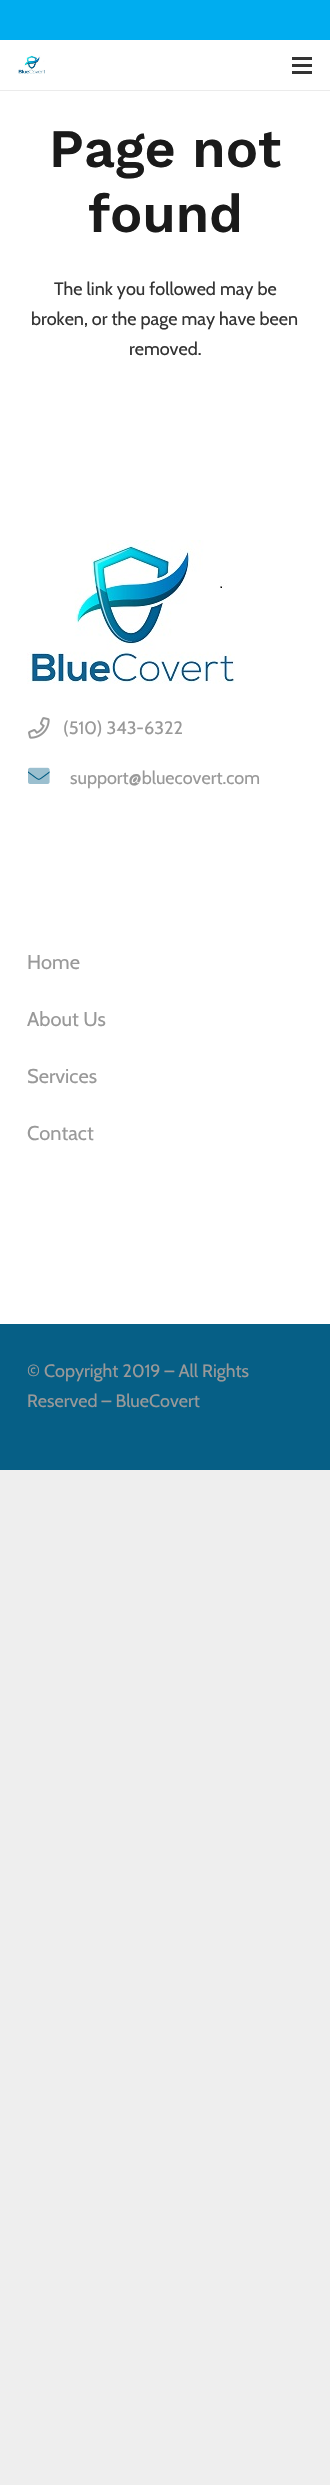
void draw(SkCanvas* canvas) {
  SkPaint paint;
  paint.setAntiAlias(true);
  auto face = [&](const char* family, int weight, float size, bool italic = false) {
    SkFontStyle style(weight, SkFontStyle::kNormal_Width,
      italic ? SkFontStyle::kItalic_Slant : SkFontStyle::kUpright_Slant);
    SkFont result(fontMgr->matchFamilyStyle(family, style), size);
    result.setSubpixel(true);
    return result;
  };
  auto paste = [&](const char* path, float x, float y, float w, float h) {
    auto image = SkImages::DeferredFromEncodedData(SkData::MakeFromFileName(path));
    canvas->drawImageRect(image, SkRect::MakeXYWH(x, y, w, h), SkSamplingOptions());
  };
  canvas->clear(0xffeeeeee);
  {
    const struct { float x, y, w, h; SkColor color; } items[] = {
      {0, 40, 330, 1284, 0xffffffff},
      {0, 0, 330, 40, 0xff00adef},
      {0, 90, 330, 1, 0xffebebeb},
    };
    for (auto [x, y, w, h, color] : items) {
      paint.setColor(color);
      canvas->drawRect(SkRect::MakeXYWH(x, y, w, h), paint);
    }
  }
  paste("img/1.png", 18, 55, 27, 19);
  {
    const struct { float x, y, w, h; SkColor color; } items[] = {
      {292, 64, 20, 3, 0xff333333},
      {292, 57, 20, 3, 0xff333333},
      {292, 71, 20, 3, 0xff333333},
    };
    for (auto [x, y, w, h, color] : items) {
      paint.setColor(color);
      canvas->drawRect(SkRect::MakeXYWH(x, y, w, h), paint);
    }
  }
  paste("img/2.png", 27, 540, 208, 144);
  paste("img/3.png", 28, 717, 22, 22);
  paste("img/5.png", 28, 771, 22, 9);
  paste("img/4.png", 28, 767, 22, 17);
  paint.setColor(0xff065f86);
  canvas->drawRect(SkRect::MakeXYWH(0, 1324, 330, 146), paint);
  auto f0 = face("Work Sans", 600, 54);
  paint.setColor(0xff1a1a1a);
  canvas->drawString("Page not", 49, 167, f0, paint);
  canvas->drawString("found", 88, 232, f0, paint);
  auto f1 = face("Cabin", 400, 18);
  paint.setColor(0xff333333);
  {
    const struct { const char* s; float x, y; } items[] = {
      {"The link you followed may be", 54, 295},
      {"broken, or the page may have been", 31, 325},
      {"removed.", 129, 355},
    };
    for (auto [s, x, y] : items) {
      canvas->drawString(s, x, y, f1, paint);
    }
  }
  paint.setColor(0xff999999);
  canvas->drawString("(510) 343-6322", 63, 734, f1, paint);
  canvas->drawString("support@bluecovert.com", 70, 784, f1, paint);
  auto f2 = face("Cabin", 400, 20);
  {
    const struct { const char* s; float x, y; } items[] = {
      {"Home", 27, 969},
      {"About Us", 27, 1026},
      {"Services", 27, 1083},
      {"Contact", 27, 1140},
    };
    for (auto [s, x, y] : items) {
      canvas->drawString(s, x, y, f2, paint);
    }
  }
  canvas->drawString("© Copyright 2019 – All Rights", 27, 1377, f1, paint);
  canvas->drawString("Reserved – BlueCovert", 27, 1407, f1, paint);
}
